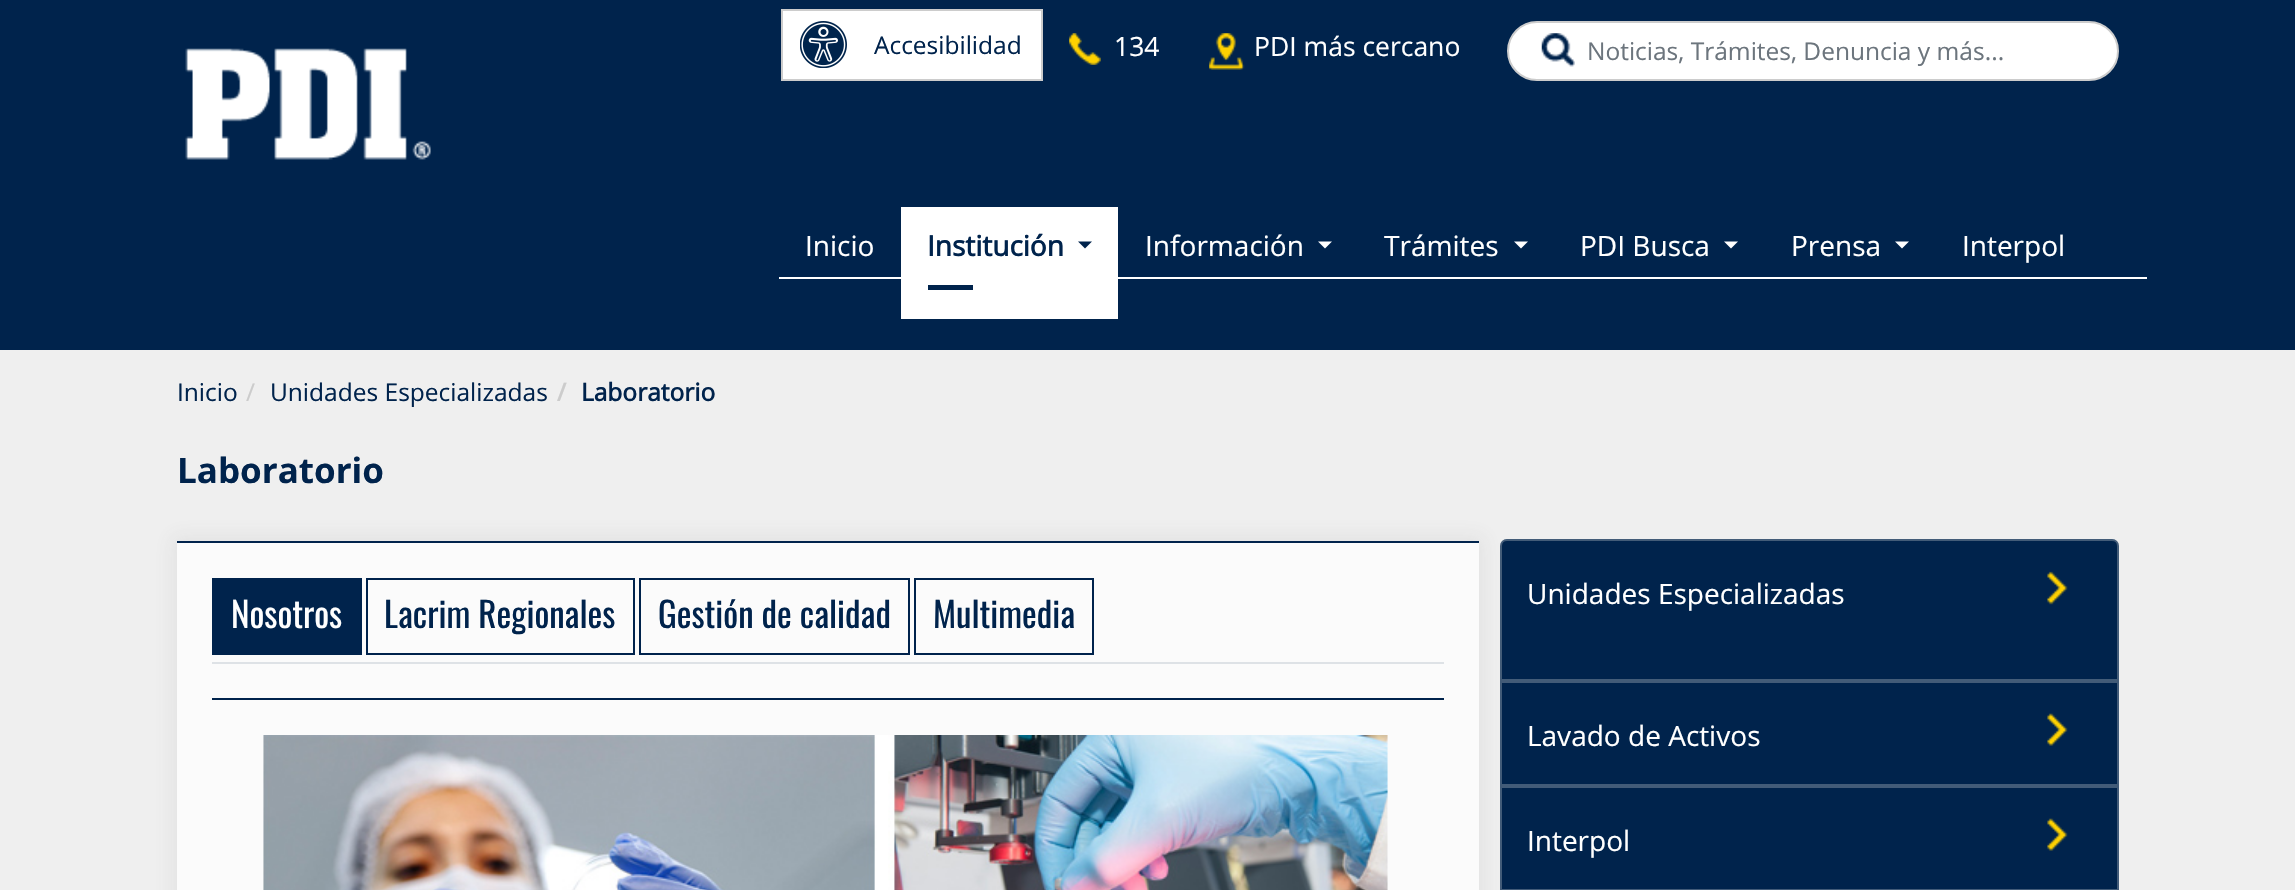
void draw(SkCanvas* canvas) {
  SkPaint paint;
  paint.setAntiAlias(true);
  auto face = [&](const char* family, int weight, float size, bool italic = false) {
    SkFontStyle style(weight, SkFontStyle::kNormal_Width,
      italic ? SkFontStyle::kItalic_Slant : SkFontStyle::kUpright_Slant);
    SkFont result(fontMgr->matchFamilyStyle(family, style), size);
    result.setSubpixel(true);
    return result;
  };
  auto paste = [&](const char* path, float x, float y, float w, float h) {
    auto image = SkImages::DeferredFromEncodedData(SkData::MakeFromFileName(path));
    canvas->drawImageRect(image, SkRect::MakeXYWH(x, y, w, h), SkSamplingOptions());
  };
  auto shape = [&](const char* data, bool evenOdd = false) {
    SkPath result = *SkParsePath::FromSVGString(data);
    if (evenOdd) result.setFillType(SkPathFillType::kEvenOdd);
    return result;
  };
  canvas->clear(0xffefefef);
  paint.setColor(0xff00234c);
  canvas->drawRect(SkRect::MakeXYWH(0, 0, 2295, 350), paint);
  paste("img/1.png", 185, 48, 246, 112);
  paint.setColor(0xffffffff);
  canvas->drawRect(SkRect::MakeXYWH(782, 10, 260, 70), paint);
  paint.setStroke(true);
  paint.setStrokeWidth(2);
  paint.setColor(0xffcccccc);
  canvas->drawRect(SkRect::MakeXYWH(782, 10, 260, 70), paint);
  paste("img/2.png", 800, 21, 47, 47);
  paste("img/3.png", 1069, 33, 32, 32);
  paste("img/4.png", 1209, 33, 36, 37);
  paint.setStroke(false);
  paint.setColor(0xffffffff);
  canvas->drawRoundRect(SkRect::MakeXYWH(1508, 22, 610, 58), 29, 29, paint);
  paint.setStroke(true);
  paint.setColor(0xffcccccc);
  canvas->drawRoundRect(SkRect::MakeXYWH(1508, 22, 610, 58), 29, 29, paint);
  paste("img/5.png", 1541, 33, 34, 34);
  paint.setStroke(false);
  paint.setColor(0xffffffff);
  canvas->drawRect(SkRect::MakeXYWH(901, 207, 217, 112), paint);
  paint.setColor(0xff00234c);
  canvas->drawPath(shape("M1078 241.5H1092L1085 248.5Z"), paint);
  canvas->drawRect(SkRect::MakeXYWH(928, 285, 45, 5), paint);
  paint.setColor(0xffffffff);
  canvas->drawPath(shape("M1318 241.5H1332L1325 248.5Z"), paint);
  canvas->drawPath(shape("M1514 241.5H1528L1521 248.5Z"), paint);
  canvas->drawPath(shape("M1724 241.5H1738L1731 248.5Z"), paint);
  canvas->drawPath(shape("M1895 241.5H1909L1902 248.5Z"), paint);
  canvas->drawRect(SkRect::MakeXYWH(779, 277, 1368, 2), paint);
  paint.setColor(0x175b5b5b);
  paint.setMaskFilter(SkMaskFilter::MakeBlur(kNormal_SkBlurStyle, 9));
  canvas->drawRect(SkRect::MakeXYWH(172, 536, 1312, 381), paint);
  paint.setMaskFilter(nullptr);
  {
    const struct { float x, y, w, h; SkColor color; } items[] = {
      {177, 543, 1302, 347, 0xfffbfbfb},
      {177, 541, 1302, 2, 0xff00234c},
      {212, 662, 1232, 2, 0xffdee2e6},
      {212, 578, 150, 77, 0xff00234c},
    };
    for (auto [x, y, w, h, color] : items) {
      paint.setColor(color);
      canvas->drawRect(SkRect::MakeXYWH(x, y, w, h), paint);
    }
  }
  paint.setStroke(true);
  canvas->drawRect(SkRect::MakeXYWH(367, 579, 267, 75), paint);
  canvas->drawRect(SkRect::MakeXYWH(640, 579, 269, 75), paint);
  canvas->drawRect(SkRect::MakeXYWH(915, 579, 178, 75), paint);
  paint.setStroke(false);
  canvas->drawRect(SkRect::MakeXYWH(212, 698, 1232, 2), paint);
  paste("img/6.png", 263, 735, 1125, 155);
  canvas->drawRoundRect(SkRect::MakeXYWH(1500, 539, 619, 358), 7, 7, paint);
  paint.setStroke(true);
  paint.setColor(0x4ddddddd);
  canvas->drawPath(shape("M1507 540H2112C2115.5 540 2118 542.5 2118 546V680H1501V546C1501 542.5 1503.5 540 1507 540Z"), paint);
  paste("img/7.png", 2047, 571, 21, 34);
  paint.setColor(0xff425b78);
  canvas->drawRect(SkRect::MakeXYWH(1501, 682, 617, 103), paint);
  paste("img/8.png", 2047, 713, 21, 33);
  canvas->drawRect(SkRect::MakeXYWH(1501, 787, 617, 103), paint);
  paste("img/8.png", 2047, 818, 21, 33);
  auto f0 = face("Open Sans", 400, 24.5f);
  paint.setStroke(false);
  paint.setColor(0xff00234c);
  canvas->drawString("Accesibilidad", 874, 54, f0, paint);
  auto f1 = face("Open Sans", 400, 26.5f);
  paint.setColor(0xffffffff);
  canvas->drawString("134", 1114, 56, f1, paint);
  canvas->drawString("PDI más cercano", 1254, 56, f1, paint);
  paint.setColor(0xff6c757d);
  canvas->drawString("Noticias, Trámites, Denuncia y más...", 1587, 60, f0, paint);
  auto f2 = face("Open Sans", 400, 28);
  paint.setColor(0xffffffff);
  canvas->drawString("Inicio", 805, 256, f2, paint);
  auto f3 = face("Open Sans", 700, 28);
  paint.setColor(0xff00234c);
  canvas->drawString("Institución", 927, 256, f3, paint);
  paint.setColor(0xffffffff);
  {
    const struct { const char* s; float x, y; } items[] = {
      {"Información", 1145, 256},
      {"Trámites", 1384, 256},
      {"PDI Busca", 1580, 256},
      {"Prensa", 1791, 256},
      {"Interpol", 1962, 256},
    };
    for (auto [s, x, y] : items) {
      canvas->drawString(s, x, y, f2, paint);
    }
  }
  paint.setColor(0xff00234c);
  canvas->drawString("Inicio", 177, 401, f0, paint);
  paint.setColor(0xffcccccc);
  canvas->drawString("/", 246, 401, f0, paint);
  paint.setColor(0xff00234c);
  canvas->drawString("Unidades Especializadas", 270, 401, f0, paint);
  auto f4 = face("Open Sans", 700, 24.5f);
  paint.setColor(0xffcccccc);
  canvas->drawString("/", 557, 401, f4, paint);
  paint.setColor(0xff00234c);
  canvas->drawString("Laboratorio", 581, 401, f4, paint);
  auto f5 = face("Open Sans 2", 700, 35);
  canvas->drawString("Laboratorio", 177, 483, f5, paint);
  auto f6 = face("Oswald", 400, 35);
  paint.setColor(0xffffffff);
  canvas->drawString("Nosotros", 231, 628, f6, paint);
  paint.setColor(0xff00234c);
  {
    const struct { const char* s; float x, y; } items[] = {
      {"Lacrim Regionales", 384, 628},
      {"Gestión de calidad", 658, 628},
      {"Multimedia", 933, 628},
    };
    for (auto [s, x, y] : items) {
      canvas->drawString(s, x, y, f6, paint);
    }
  }
  paint.setColor(0xffffffff);
  {
    const struct { const char* s; float x, y; } items[] = {
      {"Unidades Especializadas", 1527, 604},
      {"Lavado de Activos", 1527, 746},
      {"Interpol", 1527, 851},
    };
    for (auto [s, x, y] : items) {
      canvas->drawString(s, x, y, f2, paint);
    }
  }
}
